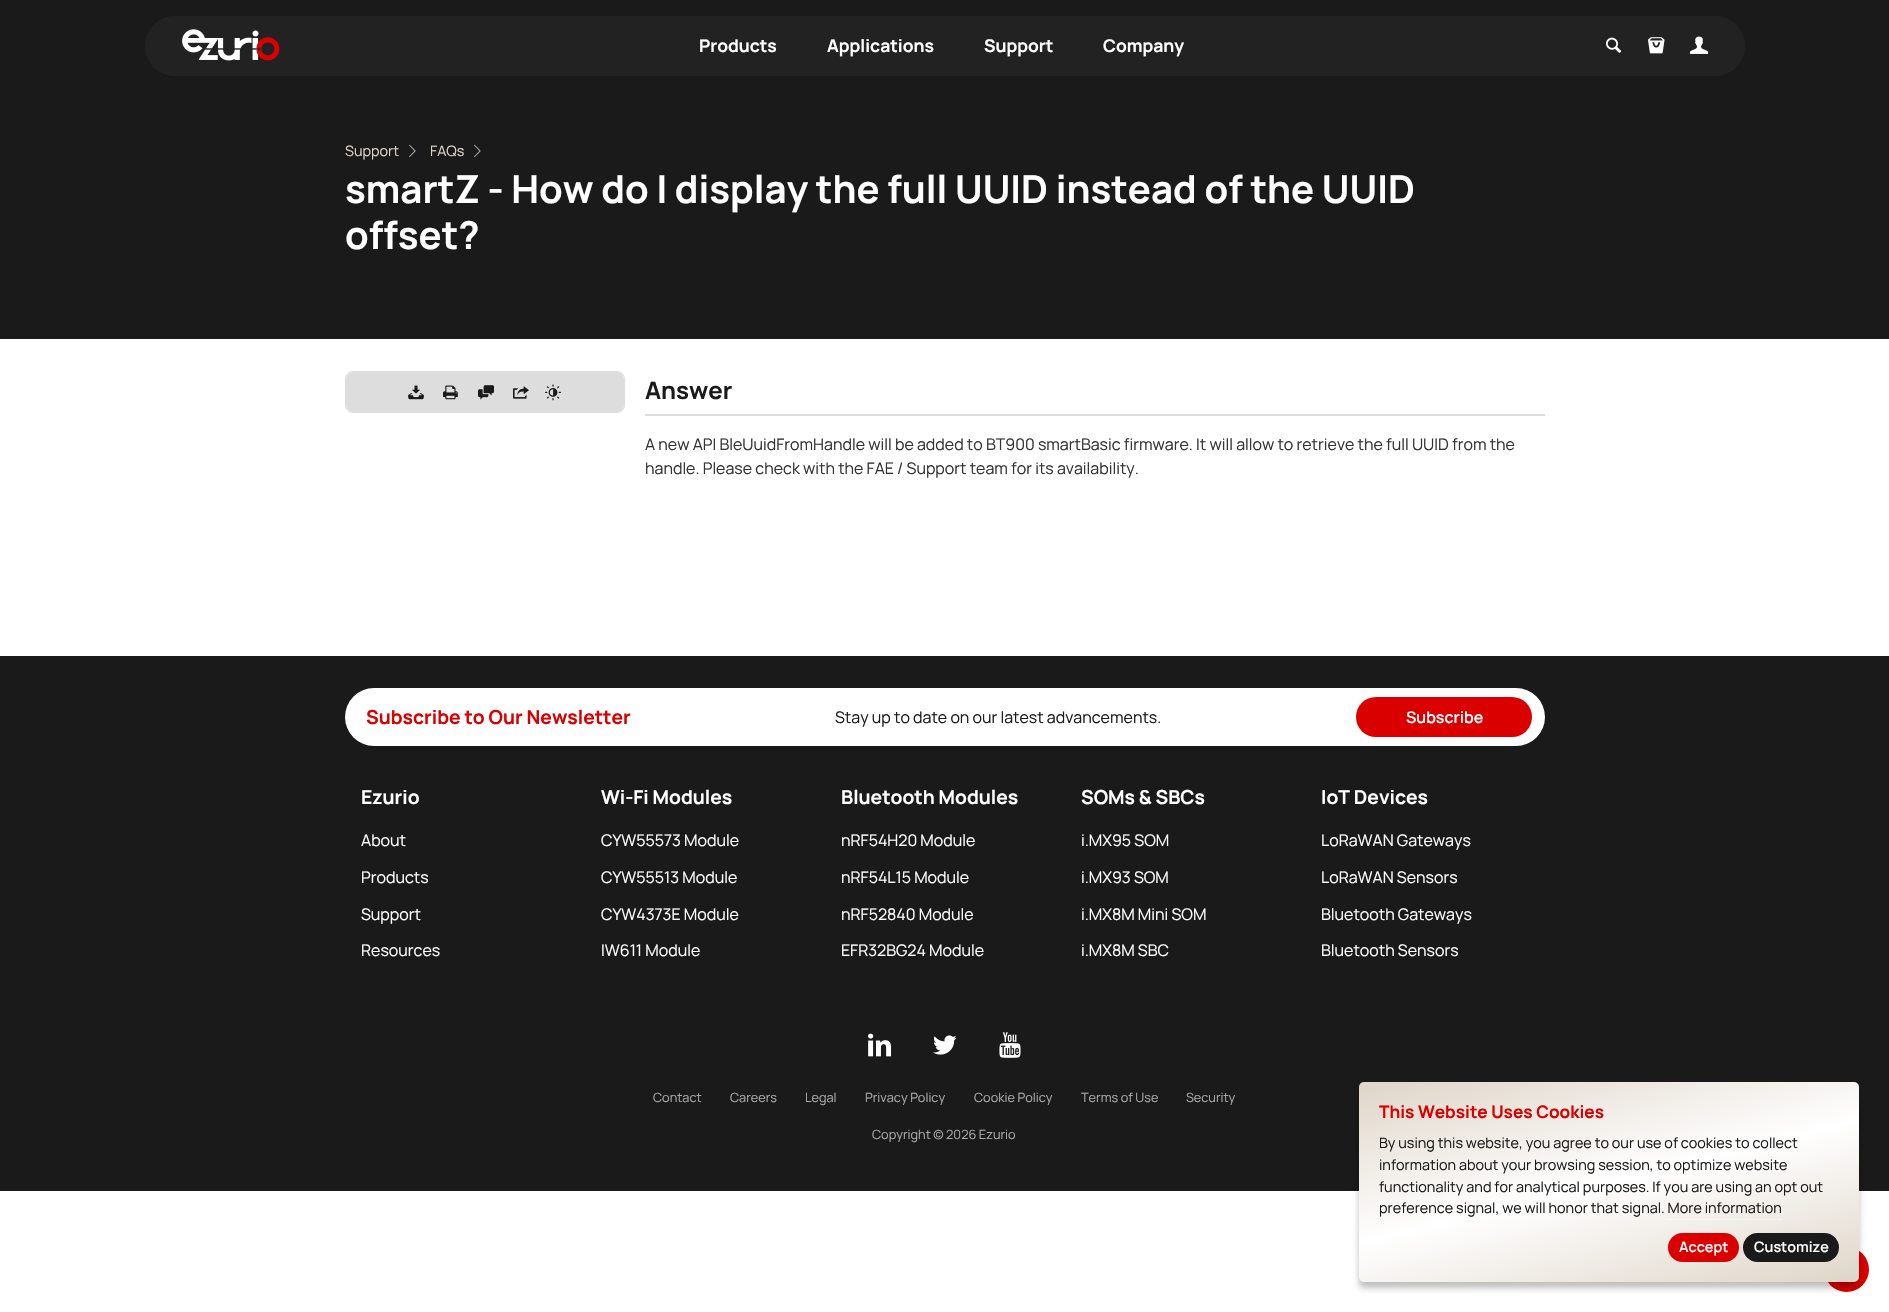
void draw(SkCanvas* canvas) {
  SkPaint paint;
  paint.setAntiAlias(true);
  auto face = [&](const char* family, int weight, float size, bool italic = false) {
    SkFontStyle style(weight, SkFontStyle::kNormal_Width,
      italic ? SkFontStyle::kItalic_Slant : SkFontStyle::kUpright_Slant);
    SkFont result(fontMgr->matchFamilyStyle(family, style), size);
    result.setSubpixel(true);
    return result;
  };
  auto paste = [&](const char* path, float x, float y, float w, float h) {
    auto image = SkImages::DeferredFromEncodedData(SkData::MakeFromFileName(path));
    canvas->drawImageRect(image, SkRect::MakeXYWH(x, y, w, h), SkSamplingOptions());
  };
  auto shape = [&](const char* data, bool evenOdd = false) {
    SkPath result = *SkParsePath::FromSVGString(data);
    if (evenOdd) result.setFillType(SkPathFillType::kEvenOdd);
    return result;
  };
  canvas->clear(0xffffffff);
  paint.setColor(0xff1a1a1a);
  canvas->drawRect(SkRect::MakeXYWH(0, 0, 1889, 339), paint);
  paint.setColor(0xff222222);
  canvas->drawRoundRect(SkRect::MakeXYWH(145, 16, 1600, 60), 30, 30, paint);
  paste("img/1.png", 182, 29, 98, 32);
  paste("img/2.png", 1606, 37, 16, 16);
  paste("img/3.png", 1648, 37, 17, 17);
  paste("img/4.png", 1690, 36, 19, 18);
  paste("img/5.png", 409, 144, 7, 14);
  paste("img/5.png", 474, 144, 7, 14);
  paint.setStroke(true);
  paint.setStrokeWidth(1);
  paint.setColor(0xffdddddd);
  canvas->drawRoundRect(SkRect::MakeXYWH(345.5f, 371.5f, 279, 41), 7.5f, 7.5f, paint);
  paint.setStroke(false);
  canvas->drawRoundRect(SkRect::MakeXYWH(346, 372, 278, 40), 7, 7, paint);
  paste("img/6.png", 408, 385, 16, 15);
  paste("img/7.png", 443, 385, 15, 15);
  paste("img/8.png", 478, 385, 16, 15);
  paste("img/9.png", 513, 386, 16, 13);
  paste("img/10.png", 545, 384, 16, 17);
  canvas->drawRect(SkRect::MakeXYWH(645, 414, 900, 2), paint);
  paint.setColor(0xff1a1a1a);
  canvas->drawRect(SkRect::MakeXYWH(0, 656, 1889, 535), paint);
  paint.setColor(0xffffffff);
  canvas->drawRoundRect(SkRect::MakeXYWH(345, 688, 1200, 58), 29, 29, paint);
  paint.setColor(0xffda0000);
  canvas->drawRoundRect(SkRect::MakeXYWH(1356, 697, 176, 40), 20, 20, paint);
  paste("img/11.png", 868, 1033, 24, 24);
  paste("img/12.png", 933, 1035, 24, 20);
  paste("img/13.png", 999, 1032, 22, 26);
  canvas->drawCircle(1846.5f, 1269.5f, 22.5f, paint);
  paint.setColor(0x40000000);
  paint.setMaskFilter(SkMaskFilter::MakeBlur(kNormal_SkBlurStyle, 3));
  canvas->drawRoundRect(SkRect::MakeXYWH(1359, 1088, 500, 200), 5, 5, paint);
  paint.setMaskFilter(nullptr);
  {
    const SkColor colors[] = {0xffdfd5c8, 0xffffffff, 0xffdfd5c8};
    const float stops[] = {0, 0.5f, 1};
    const SkPoint ends[] = {{1647, 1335}, {1571, 1029}};
    paint.setShader(SkGradientShader::MakeLinear(ends, colors, stops, 3, SkTileMode::kClamp));
    paint.setAlpha(255);
  }
  canvas->drawRoundRect(SkRect::MakeXYWH(1359, 1082, 500, 200), 5, 5, paint);
  paint.setStroke(true);
  paint.setShader(nullptr);
  paint.setColor(0xbfffffff);
  paint.setPathEffect(SkDashPathEffect::Make({{1, 1}}, 0));
  canvas->drawPath(shape("M1667 1219.5H1782"), paint);
  paint.setPathEffect(nullptr);
  paint.setStroke(false);
  paint.setColor(0xffda0000);
  canvas->drawRoundRect(SkRect::MakeXYWH(1668, 1233, 71, 29), 14.5f, 14.5f, paint);
  paint.setColor(0xff1a1a1a);
  canvas->drawRoundRect(SkRect::MakeXYWH(1743, 1233, 96, 29), 14.5f, 14.5f, paint);
  auto f0 = face("Manrope", 700, 17.5f);
  paint.setColor(0xffffffff);
  {
    const struct { const char* s; float x, y; } items[] = {
      {"Products", 699, 52},
      {"Applications", 827, 52},
      {"Support", 984, 52},
      {"Company", 1103, 52},
    };
    for (auto [s, x, y] : items) {
      canvas->drawString(s, x, y, f0, paint);
    }
  }
  auto f1 = face("Manrope", 400, 14.4f);
  paint.setColor(0xffdfd5c8);
  canvas->drawString("Support", 345, 156, f1, paint);
  canvas->drawString("FAQs", 430, 156, f1, paint);
  auto f2 = face("Manrope", 700, 38.4f);
  paint.setColor(0xffffffff);
  canvas->drawString("smartZ - How do I display the full UUID instead of the UUID", 345, 203, f2, paint);
  canvas->drawString("offset?", 345, 249, f2, paint);
  auto f3 = face("Manrope", 700, 24);
  paint.setColor(0xff1a1a1a);
  canvas->drawString("Answer", 645, 399, f3, paint);
  auto f4 = face("Manrope", 400, 16);
  paint.setColor(0xff333333);
  canvas->drawString("A new API BleUuidFromHandle will be added to BT900 smartBasic firmware. It will allow to retrieve the full UUID from the", 645, 450, f4, paint);
  canvas->drawString("handle. Please check with the FAE / Support team for its availability.", 645, 474, f4, paint);
  auto f5 = face("Manrope", 700, 19.25f);
  paint.setColor(0xffda0000);
  canvas->drawString("Subscribe to Our Newsletter", 366, 724, f5, paint);
  paint.setColor(0xff1a1a1a);
  canvas->drawString("Stay up to date on our latest advancements.", 835, 723, f4, paint);
  auto f6 = face("Manrope", 600, 16);
  paint.setColor(0xffffffff);
  canvas->drawString("Subscribe", 1406, 723, f6, paint);
  canvas->drawString("Ezurio", 361, 804, f5, paint);
  {
    const struct { const char* s; float x, y; } items[] = {
      {"About", 361, 846},
      {"Products", 361, 883},
      {"Support", 361, 920},
      {"Resources", 361, 956},
    };
    for (auto [s, x, y] : items) {
      canvas->drawString(s, x, y, f4, paint);
    }
  }
  canvas->drawString("Wi-Fi Modules", 601, 804, f5, paint);
  {
    const struct { const char* s; float x, y; } items[] = {
      {"CYW55573 Module", 601, 846},
      {"CYW55513 Module", 601, 883},
      {"CYW4373E Module", 601, 920},
      {"IW611 Module", 601, 956},
    };
    for (auto [s, x, y] : items) {
      canvas->drawString(s, x, y, f4, paint);
    }
  }
  canvas->drawString("Bluetooth Modules", 841, 804, f5, paint);
  {
    const struct { const char* s; float x, y; } items[] = {
      {"nRF54H20 Module", 841, 846},
      {"nRF54L15 Module", 841, 883},
      {"nRF52840 Module", 841, 920},
      {"EFR32BG24 Module", 841, 956},
    };
    for (auto [s, x, y] : items) {
      canvas->drawString(s, x, y, f4, paint);
    }
  }
  canvas->drawString("SOMs & SBCs", 1081, 804, f5, paint);
  {
    const struct { const char* s; float x, y; } items[] = {
      {"i.MX95 SOM", 1081, 846},
      {"i.MX93 SOM", 1081, 883},
      {"i.MX8M Mini SOM", 1081, 920},
      {"i.MX8M SBC", 1081, 956},
    };
    for (auto [s, x, y] : items) {
      canvas->drawString(s, x, y, f4, paint);
    }
  }
  canvas->drawString("IoT Devices", 1321, 804, f5, paint);
  {
    const struct { const char* s; float x, y; } items[] = {
      {"LoRaWAN Gateways", 1321, 846},
      {"LoRaWAN Sensors", 1321, 883},
      {"Bluetooth Gateways", 1321, 920},
      {"Bluetooth Sensors", 1321, 956},
    };
    for (auto [s, x, y] : items) {
      canvas->drawString(s, x, y, f4, paint);
    }
  }
  auto f7 = face("Manrope", 400, 12.75f);
  paint.setColor(0xffaaaaaa);
  {
    const struct { const char* s; float x, y; } items[] = {
      {"Contact", 653, 1102},
      {"Careers", 730, 1102},
      {"Legal", 805, 1102},
      {"Privacy Policy", 865, 1102},
      {"Cookie Policy", 974, 1102},
      {"Terms of Use", 1081, 1102},
      {"Security", 1186, 1102},
      {"Copyright © 2026 Ezurio", 872, 1139},
    };
    for (auto [s, x, y] : items) {
      canvas->drawString(s, x, y, f7, paint);
    }
  }
  auto f8 = face("Manrope", 700, 17.25f);
  paint.setColor(0xffda0000);
  canvas->drawString("This Website Uses Cookies", 1379, 1118, f8, paint);
  paint.setColor(0xff1a1a1a);
  {
    const struct { const char* s; float x, y; } items[] = {
      {"By using this website, you agree to our use of cookies to collect", 1379, 1148},
      {"information about your browsing session, to optimize website", 1379, 1170},
      {"functionality and for analytical purposes. If you are using an opt out", 1379, 1192},
      {"preference signal, we will honor that signal. More information", 1379, 1213},
    };
    for (auto [s, x, y] : items) {
      canvas->drawString(s, x, y, f1, paint);
    }
  }
  auto f9 = face("Manrope", 600, 14.4f);
  paint.setColor(0xffffffff);
  canvas->drawString("Accept", 1679, 1252, f9, paint);
  canvas->drawString("Customize", 1754, 1252, f9, paint);
}
